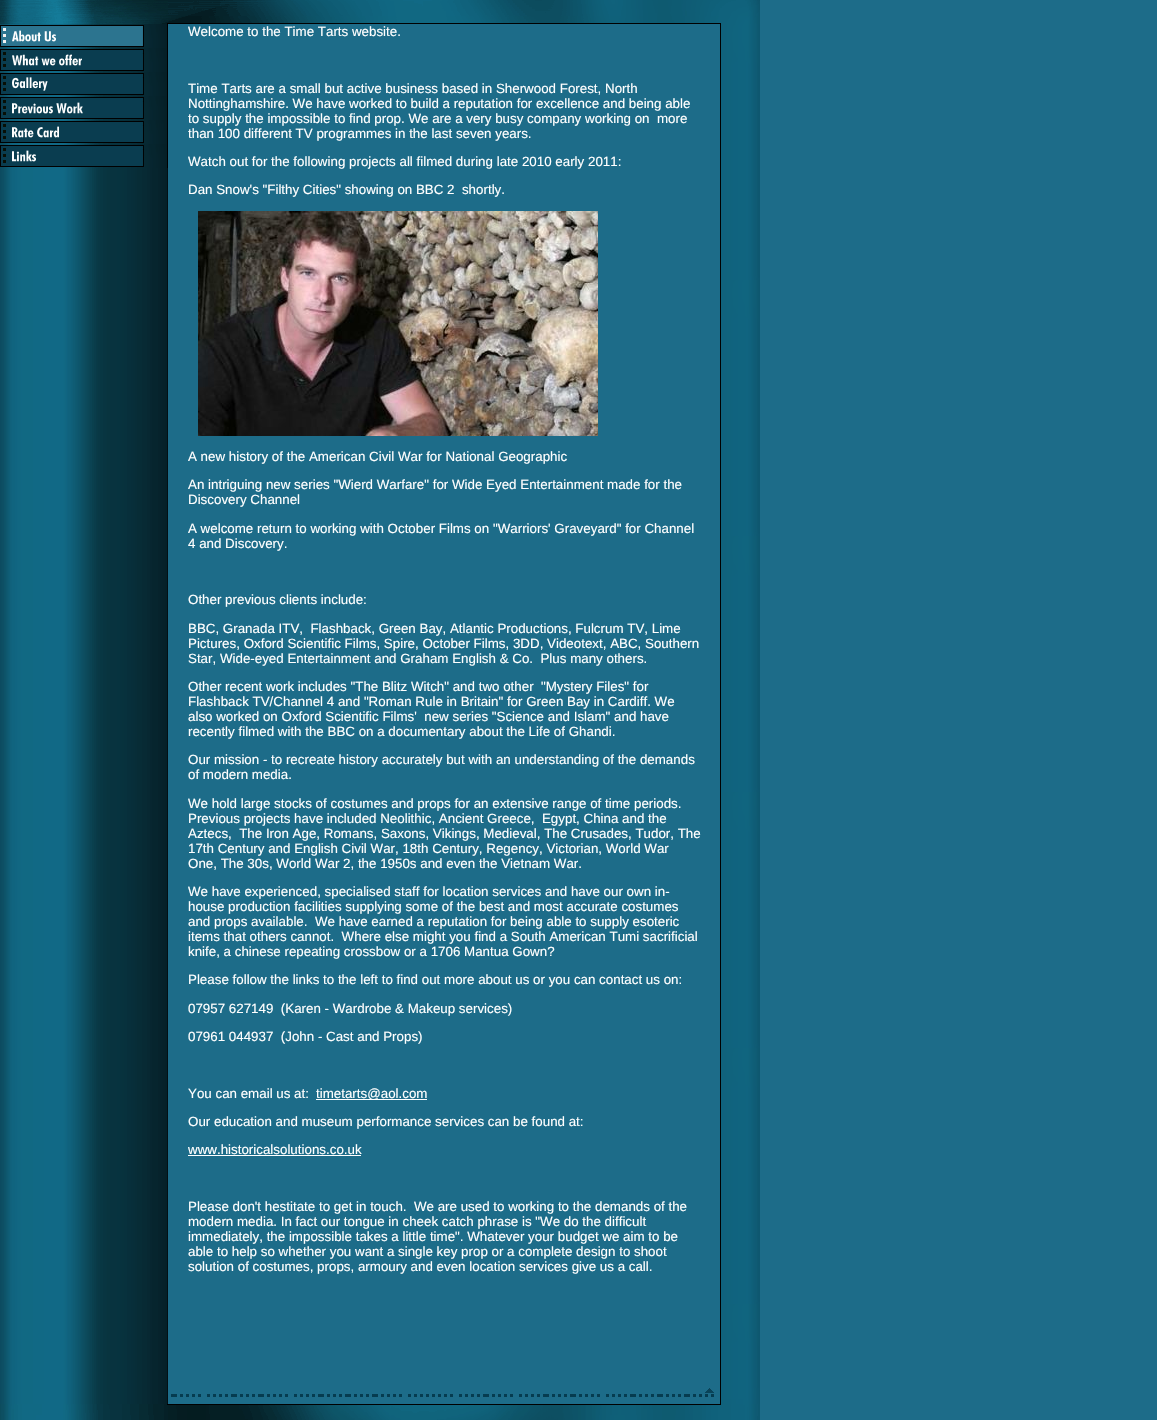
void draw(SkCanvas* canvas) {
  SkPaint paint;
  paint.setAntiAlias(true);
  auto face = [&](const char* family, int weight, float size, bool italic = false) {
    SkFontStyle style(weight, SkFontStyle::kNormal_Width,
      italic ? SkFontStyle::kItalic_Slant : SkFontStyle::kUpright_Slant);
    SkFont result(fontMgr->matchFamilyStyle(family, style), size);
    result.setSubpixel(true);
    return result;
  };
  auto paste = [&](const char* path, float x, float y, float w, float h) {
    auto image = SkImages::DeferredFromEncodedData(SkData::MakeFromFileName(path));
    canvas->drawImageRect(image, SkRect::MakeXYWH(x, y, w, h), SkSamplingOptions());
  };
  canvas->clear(0xff1d6c89);
  paste("img/1.png", 0, 0, 168, 24);
  paste("img/2.png", 168, 0, 392, 16);
  paste("img/3.png", 560, 0, 160, 16);
  paste("img/4.png", 720, 0, 40, 16);
  paste("img/5.png", 168, 16, 592, 8);
  paste("img/6.png", 0, 168, 168, 1236);
  paste("img/7.png", 0, 24, 168, 24);
  paste("img/8.png", 0, 48, 168, 24);
  paste("img/9.png", 0, 72, 168, 24);
  paste("img/10.png", 0, 96, 168, 24);
  paste("img/11.png", 0, 120, 168, 24);
  paste("img/12.png", 0, 144, 168, 24);
  paste("img/13.png", 198, 211, 400, 225);
  paint.setColor(0xffffffff);
  canvas->drawRect(SkRect::MakeXYWH(316, 1099, 111, 1), paint);
  canvas->drawRect(SkRect::MakeXYWH(188, 1155, 173, 1), paint);
  paste("img/14.png", 720, 24, 40, 1364);
  paste("img/15.png", 171, 1388, 589, 16);
  paste("img/16.png", 0, 1404, 760, 16);
  auto f0 = face("Liberation Sans", 400, 13.35f);
  {
    const struct { const char* s; float x, y; } items[] = {
      {"Welcome to the Time Tarts website.", 188, 36},
      {"Time Tarts are a small but active business based in Sherwood Forest, North", 188, 93},
      {"Nottinghamshire. We have worked to build a reputation for excellence and being able", 188, 108},
      {"to supply the impossible to find prop. We are a very busy company working on  more", 188, 123},
      {"than 100 different TV programmes in the last seven years.", 188, 138},
      {"Watch out for the following projects all filmed during late 2010 early 2011:", 188, 166},
      {"Dan Snow's \"Filthy Cities\" showing on BBC 2  shortly.", 188, 194},
      {"A new history of the American Civil War for National Geographic", 188, 461},
      {"An intriguing new series \"Wierd Warfare\" for Wide Eyed Entertainment made for the", 188, 489},
      {"Discovery Channel", 188, 504},
      {"A welcome return to working with October Films on \"Warriors' Graveyard\" for Channel", 188, 533},
      {"4 and Discovery.", 188, 548},
      {"Other previous clients include:", 188, 604},
      {"BBC, Granada ITV,  Flashback, Green Bay, Atlantic Productions, Fulcrum TV, Lime", 188, 633},
      {"Pictures, Oxford Scientific Films, Spire, October Films, 3DD, Videotext, ABC, Southern", 188, 648},
      {"Star, Wide-eyed Entertainment and Graham English & Co.  Plus many others.", 188, 663},
      {"Other recent work includes \"The Blitz Witch\" and two other  \"Mystery Files\" for", 188, 691},
      {"Flashback TV/Channel 4 and \"Roman Rule in Britain\" for Green Bay in Cardiff. We", 188, 706},
      {"also worked on Oxford Scientific Films'  new series \"Science and Islam\" and have", 188, 721},
      {"recently filmed with the BBC on a documentary about the Life of Ghandi.", 188, 736},
      {"Our mission - to recreate history accurately but with an understanding of the demands", 188, 764},
      {"of modern media.", 188, 779},
      {"We hold large stocks of costumes and props for an extensive range of time periods.", 188, 808},
      {"Previous projects have included Neolithic, Ancient Greece,  Egypt, China and the", 188, 823},
      {"Aztecs,  The Iron Age, Romans, Saxons, Vikings, Medieval, The Crusades, Tudor, The", 188, 838},
      {"17th Century and English Civil War, 18th Century, Regency, Victorian, World War", 188, 853},
      {"One, The 30s, World War 2, the 1950s and even the Vietnam War.", 188, 868},
      {"We have experienced, specialised staff for location services and have our own in-", 188, 896},
      {"house production facilities supplying some of the best and most accurate costumes", 188, 911},
      {"and props available.  We have earned a reputation for being able to supply esoteric", 188, 926},
      {"items that others cannot.  Where else might you find a South American Tumi sacrificial", 188, 941},
      {"knife, a chinese repeating crossbow or a 1706 Mantua Gown?", 188, 956},
      {"Please follow the links to the left to find out more about us or you can contact us on:", 188, 984},
      {"07957 627149  (Karen - Wardrobe & Makeup services)", 188, 1013},
      {"07961 044937  (John - Cast and Props)", 188, 1041},
      {"You can email us at:", 188, 1098},
      {"timetarts@aol.com", 316, 1098},
      {"Our education and museum performance services can be found at:", 188, 1126},
      {"www.historicalsolutions.co.uk", 188, 1154},
      {"Please don't hestitate to get in touch.  We are used to working to the demands of the", 188, 1211},
      {"modern media. In fact our tongue in cheek catch phrase is \"We do the difficult", 188, 1226},
      {"immediately, the impossible takes a little time\". Whatever your budget we aim to be", 188, 1241},
      {"able to help so whether you want a single key prop or a complete design to shoot", 188, 1256},
      {"solution of costumes, props, armoury and even location services give us a call.", 188, 1271},
    };
    for (auto [s, x, y] : items) {
      canvas->drawString(s, x, y, f0, paint);
    }
  }
}
